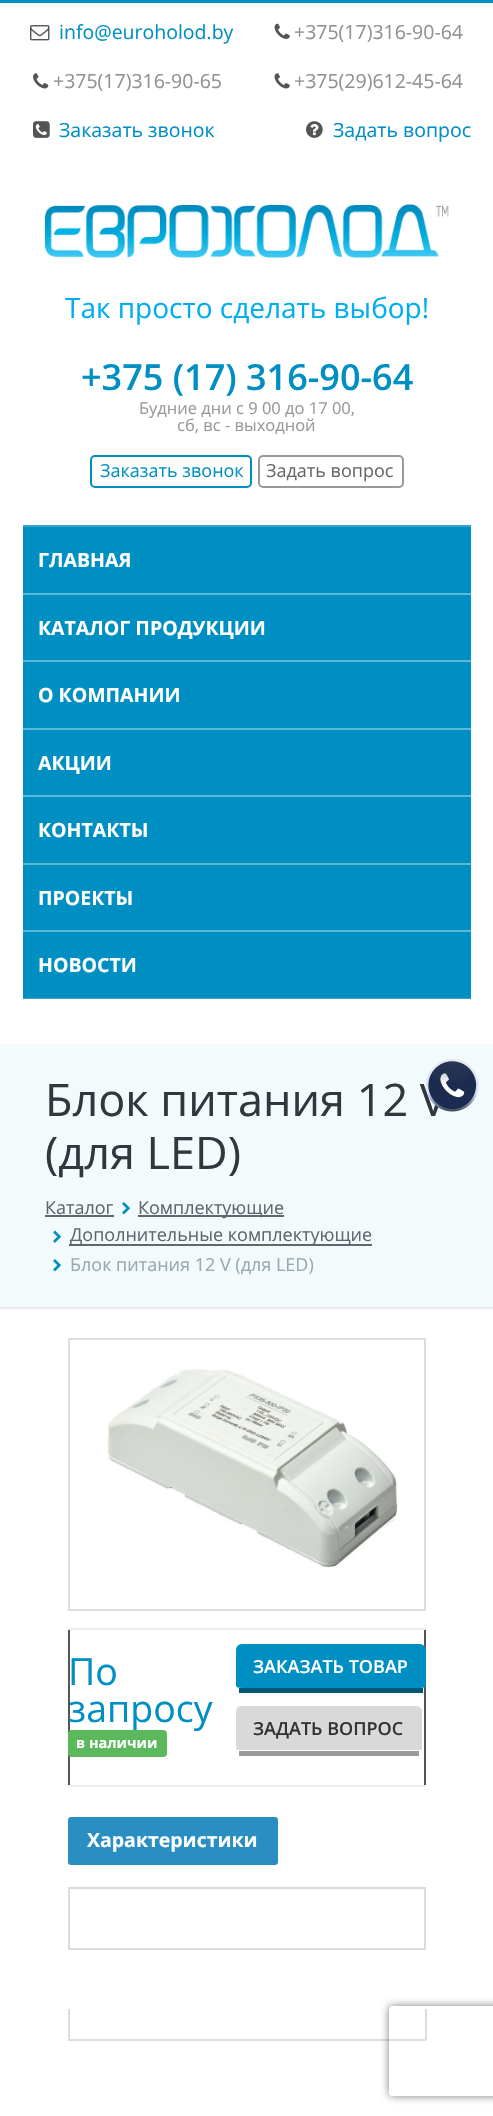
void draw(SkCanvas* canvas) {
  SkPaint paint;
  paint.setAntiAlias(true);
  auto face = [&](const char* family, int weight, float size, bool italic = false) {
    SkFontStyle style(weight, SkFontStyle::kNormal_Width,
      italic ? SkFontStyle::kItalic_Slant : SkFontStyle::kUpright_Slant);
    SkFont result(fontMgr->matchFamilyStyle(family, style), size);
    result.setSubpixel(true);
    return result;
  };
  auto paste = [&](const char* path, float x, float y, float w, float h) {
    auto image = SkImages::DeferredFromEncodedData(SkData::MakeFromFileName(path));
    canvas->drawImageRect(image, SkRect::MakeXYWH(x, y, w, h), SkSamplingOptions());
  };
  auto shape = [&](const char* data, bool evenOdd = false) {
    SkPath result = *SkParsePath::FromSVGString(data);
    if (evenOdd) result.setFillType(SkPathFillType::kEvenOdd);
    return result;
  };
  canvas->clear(0xffffffff);
  paint.setColor(0xff008fc3);
  canvas->drawRect(SkRect::MakeXYWH(0, 0, 493, 3), paint);
  paste("img/1.png", 30, 25, 20, 16);
  paste("img/2.png", 274, 23, 16, 16);
  paste("img/3.png", 33, 73, 16, 16);
  paste("img/4.png", 274, 73, 16, 16);
  paste("img/5.png", 33, 121, 17, 17);
  paste("img/6.png", 306, 121, 17, 17);
  paste("img/7.png", 45, 204, 404, 54);
  paint.setStroke(true);
  paint.setStrokeWidth(2);
  canvas->drawRoundRect(SkRect::MakeXYWH(91, 456, 160, 31), 4, 4, paint);
  paint.setColor(0xff9a9a9a);
  canvas->drawRoundRect(SkRect::MakeXYWH(259, 456, 144, 31), 4, 4, paint);
  paint.setStroke(false);
  {
    const struct { float x, y, w, h; SkColor color; } items[] = {
      {23, 527, 448, 471, 0xff008fc3},
      {23, 998, 448, 1, 0xff33a5cf},
      {23, 525, 448, 2, 0xff33a5cf},
      {23, 593, 448, 2, 0xff5cb7d9},
      {23, 660, 448, 2, 0xff5cb7d9},
      {23, 728, 448, 2, 0xff5cb7d9},
      {23, 795, 448, 2, 0xff5cb7d9},
      {23, 863, 448, 2, 0xff5cb7d9},
      {23, 930, 448, 2, 0xff5cb7d9},
      {0, 1044, 493, 263, 0xfff3fafc},
      {0, 1307, 493, 2, 0xffe6e9ea},
      {45, 1215, 69, 2, 0xff5e676c},
    };
    for (auto [x, y, w, h, color] : items) {
      paint.setColor(color);
      canvas->drawRect(SkRect::MakeXYWH(x, y, w, h), paint);
    }
  }
  paste("img/8.png", 122, 1202, 8, 13);
  canvas->drawRect(SkRect::MakeXYWH(138, 1215, 146, 2), paint);
  paste("img/9.png", 53, 1230, 8, 13);
  canvas->drawRect(SkRect::MakeXYWH(69, 1244, 303, 2), paint);
  paste("img/8.png", 53, 1259, 8, 13);
  paint.setStroke(true);
  paint.setColor(0xffdddddd);
  canvas->drawRect(SkRect::MakeXYWH(69, 1339, 356, 271), paint);
  paste("img/11.png", 107, 1369, 291, 200);
  paint.setColor(0xff555555);
  canvas->drawRect(SkRect::MakeXYWH(69, 1629, 356, 157), paint);
  paint.setStroke(false);
  paint.setColor(0xffeeeeee);
  canvas->drawRect(SkRect::MakeXYWH(68, 1628, 358, 2), paint);
  canvas->drawRect(SkRect::MakeXYWH(68, 1785, 358, 2), paint);
  paint.setColor(0xff008fc3);
  canvas->drawPath(shape("M242 1644H420C423 1644 426 1647 426 1650V1686C426 1687 423 1688 420 1688H242C238 1688 236 1687 236 1686V1650C236 1647 238 1644 242 1644Z"), paint);
  paint.setColor(0xff005776);
  canvas->drawRect(SkRect::MakeXYWH(239, 1688, 184, 5), paint);
  paint.setColor(0xffd9d9d9);
  canvas->drawPath(shape("M242 1706H416C419 1706 422 1708 422 1712V1749C422 1750 419 1750 416 1750H242C238 1750 236 1750 236 1749V1712C236 1708 238 1706 242 1706Z"), paint);
  paint.setColor(0xff9a9a9a);
  canvas->drawRect(SkRect::MakeXYWH(239, 1751, 180, 5), paint);
  paint.setColor(0xff298fc3);
  canvas->drawRoundRect(SkRect::MakeXYWH(69, 1818, 208, 46), 2, 2, paint);
  paint.setStroke(true);
  canvas->drawRoundRect(SkRect::MakeXYWH(69, 1818, 208, 46), 2, 2, paint);
  paint.setColor(0xffdbdbdb);
  canvas->drawRect(SkRect::MakeXYWH(69, 1888, 356, 61), paint);
  paint.setStroke(false);
  {
    const struct { float x, y, w, h; SkColor color; } items[] = {
      {425, 2009, 2, 31, 0xffdddddd},
      {68, 2039, 358, 2, 0xffdddddd},
      {68, 2009, 2, 31, 0xffdddddd},
    };
    for (auto [x, y, w, h, color] : items) {
      paint.setColor(color);
      canvas->drawRect(SkRect::MakeXYWH(x, y, w, h), paint);
    }
  }
  canvas->save();
  canvas->clipPath(shape("M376 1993H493V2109H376ZM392 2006H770C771.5 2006 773 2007.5 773 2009V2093C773 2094.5 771.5 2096 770 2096H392C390.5 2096 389 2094.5 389 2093V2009C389 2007.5 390.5 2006 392 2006Z", true), true);
  paint.setColor(0xff808080);
  paint.setMaskFilter(SkMaskFilter::MakeBlur(kNormal_SkBlurStyle, 4));
  canvas->drawRoundRect(SkRect::MakeXYWH(389, 2006, 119, 90), 3, 3, paint);
  paint.setMaskFilter(nullptr);
  canvas->restore();
  auto f0 = face("Open Sans", 400, 19.5f);
  paint.setColor(0xff008fc3);
  canvas->drawString("info@euroholod.by", 59, 39, f0, paint);
  paint.setColor(0xff919191);
  {
    const struct { const char* s; float x, y; } items[] = {
      {"+375(17)316-90-64", 294, 39},
      {"+375(17)316-90-65", 53, 88},
      {"+375(29)612-45-64", 294, 88},
    };
    for (auto [s, x, y] : items) {
      canvas->drawString(s, x, y, f0, paint);
    }
  }
  paint.setColor(0xff008fc3);
  canvas->drawString("Заказать звонок", 59, 137, f0, paint);
  canvas->drawString("Задать вопрос", 333, 137, f0, paint);
  auto f1 = face("Open Sans", 400, 28);
  paint.setColor(0xff00aeef);
  canvas->drawString("Так просто сделать выбор!", 65, 318, f1, paint);
  auto f2 = face("Open Sans", 600, 36);
  paint.setColor(0xff008fc3);
  canvas->drawString("+375 (17) 316-90-64", 81, 390, f2, paint);
  auto f3 = face("Open Sans", 400, 16.5f);
  paint.setColor(0xff999999);
  canvas->drawString("Будние дни с 9 00 до 17 00,", 139, 414, f3, paint);
  canvas->drawString("сб, вс - выходной", 177, 431, f3, paint);
  auto f4 = face("Open Sans", 400, 18);
  paint.setColor(0xff008fc3);
  canvas->drawString("Заказать звонок", 100, 477, f4, paint);
  paint.setColor(0xff676767);
  canvas->drawString("Задать вопрос", 266, 477, f4, paint);
  auto f5 = face("Open Sans", 700, 19.5f);
  paint.setColor(0xffffffff);
  {
    const struct { const char* s; float x, y; } items[] = {
      {"ГЛАВНАЯ", 38, 567},
      {"КАТАЛОГ ПРОДУКЦИИ", 38, 635},
      {"О КОМПАНИИ", 38, 702},
      {"АКЦИИ", 38, 770},
      {"КОНТАКТЫ", 38, 837},
      {"ПРОЕКТЫ", 38, 905},
      {"НОВОСТИ", 38, 972},
    };
    for (auto [s, x, y] : items) {
      canvas->drawString(s, x, y, f5, paint);
    }
  }
  auto f6 = face("Open Sans", 400, 45);
  paint.setColor(0xff2f383d);
  canvas->drawString("Блок питания 12 V", 45, 1116, f6, paint);
  canvas->drawString("(для LED)", 45, 1169, f6, paint);
  paint.setColor(0xff5e676c);
  {
    const struct { const char* s; float x, y; } items[] = {
      {"Каталог", 45, 1214},
      {"Комплектующие", 138, 1214},
      {"Дополнительные комплектующие", 70, 1241},
    };
    for (auto [s, x, y] : items) {
      canvas->drawString(s, x, y, f4, paint);
    }
  }
  paint.setColor(0xff9aa7af);
  canvas->drawString("Блок питания 12 V (для LED)", 70, 1271, f4, paint);
  paste("img/10.png", 426, 1059, 53, 53);
  auto f7 = face("Open Sans", 400, 37.5f);
  paint.setColor(0xff008fc3);
  canvas->drawString("По", 68, 1685, f7, paint);
  canvas->drawString("запросу", 68, 1722, f7, paint);
  paint.setColor(0xff5cb85c);
  canvas->drawRoundRect(SkRect::MakeXYWH(68, 1730, 99, 27), 4, 4, paint);
  auto f8 = face("Open Sans", 700, 14.5f);
  paint.setColor(0xffffffff);
  canvas->drawString("в наличии", 76, 1748, f8, paint);
  auto f9 = face("Open Sans", 600, 18);
  canvas->drawString("ЗАКАЗАТЬ ТОВАР", 253, 1673, f9, paint);
  paint.setColor(0xff333333);
  canvas->drawString("ЗАДАТЬ ВОПРОС", 253, 1735, f9, paint);
  paint.setColor(0xffffffff);
  canvas->drawString("Характеристики", 87, 1847, f5, paint);
}
